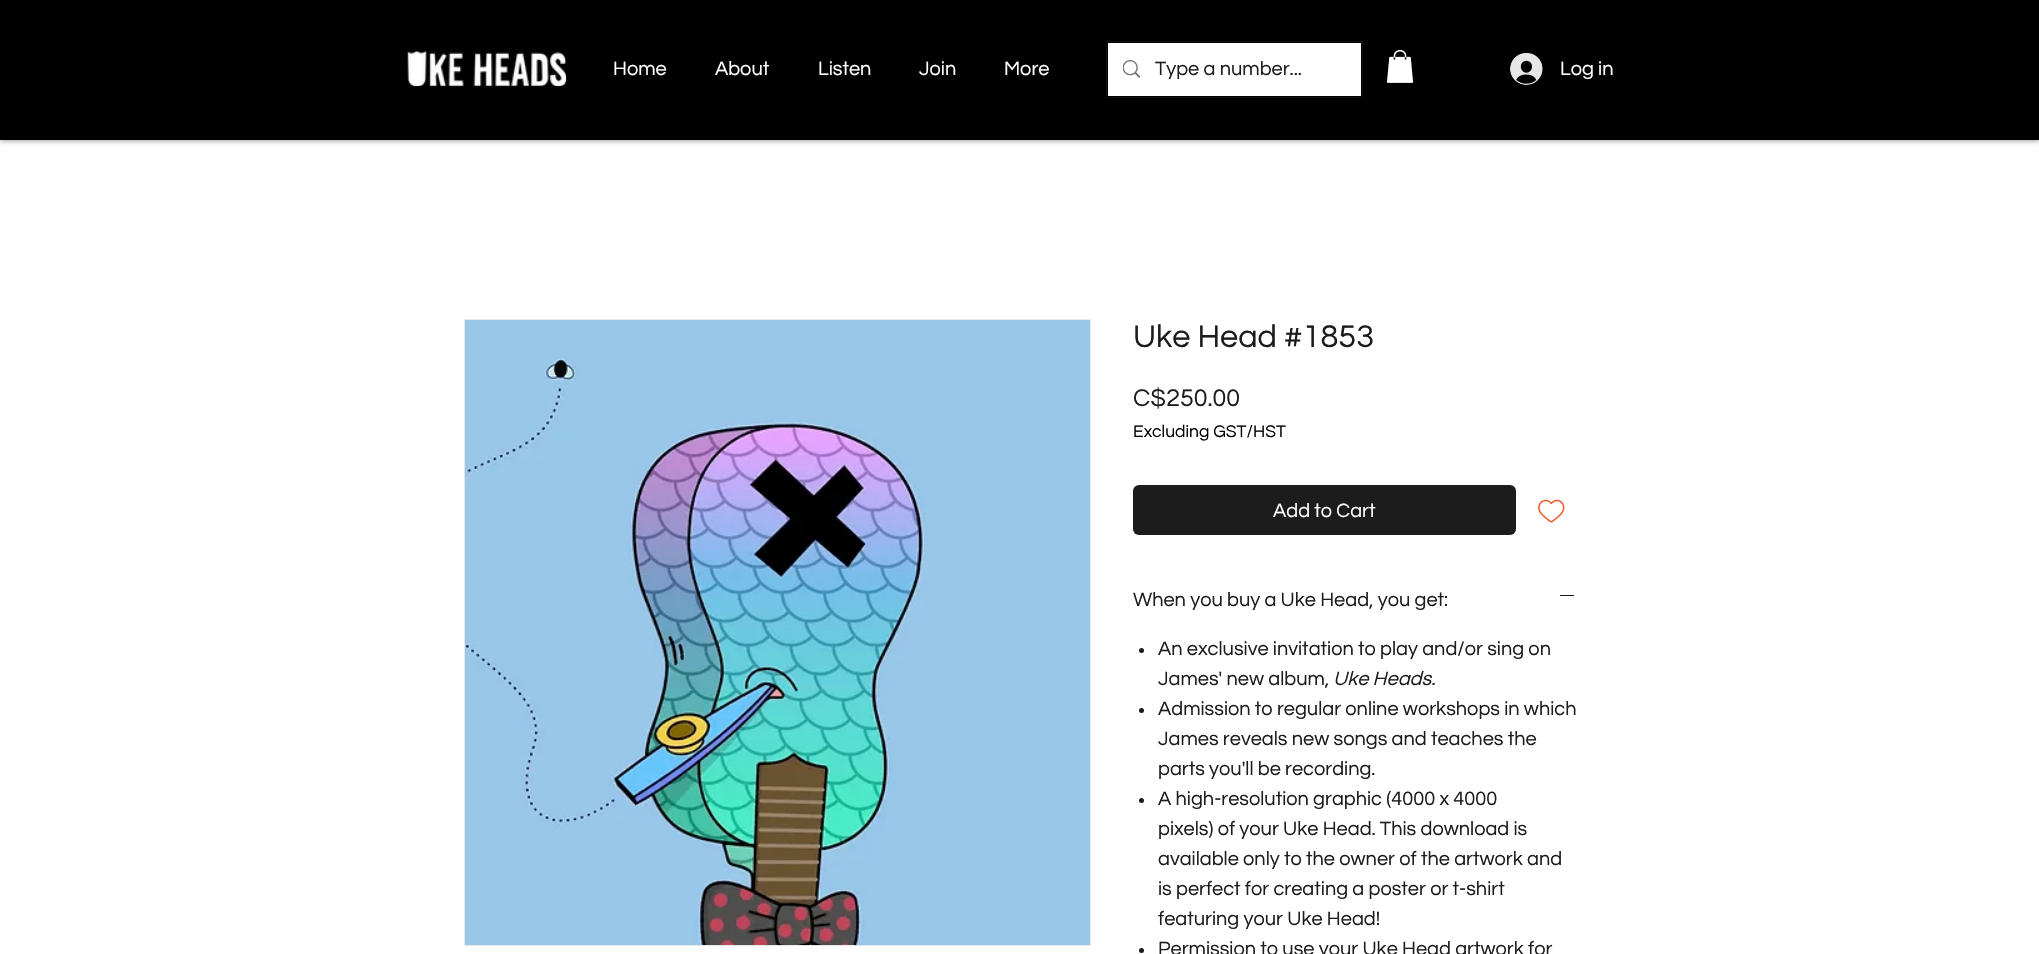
void draw(SkCanvas* canvas) {
  SkPaint paint;
  paint.setAntiAlias(true);
  auto face = [&](const char* family, int weight, float size, bool italic = false) {
    SkFontStyle style(weight, SkFontStyle::kNormal_Width,
      italic ? SkFontStyle::kItalic_Slant : SkFontStyle::kUpright_Slant);
    SkFont result(fontMgr->matchFamilyStyle(family, style), size);
    result.setSubpixel(true);
    return result;
  };
  auto paste = [&](const char* path, float x, float y, float w, float h) {
    auto image = SkImages::DeferredFromEncodedData(SkData::MakeFromFileName(path));
    canvas->drawImageRect(image, SkRect::MakeXYWH(x, y, w, h), SkSamplingOptions());
  };
  canvas->clear(0xffffffff);
  paint.setColor(0x80000000);
  paint.setMaskFilter(SkMaskFilter::MakeBlur(kNormal_SkBlurStyle, 3));
  canvas->drawRect(SkRect::MakeXYWH(0, 0, 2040, 140), paint);
  paint.setMaskFilter(nullptr);
  paint.setColor(0xff000000);
  canvas->drawRect(SkRect::MakeXYWH(0, 0, 2039, 140), paint);
  paste("img/1.png", 407, 51, 160, 36);
  paint.setStroke(true);
  paint.setStrokeWidth(1);
  paint.setColor(0xff111111);
  canvas->drawRect(SkRect::MakeXYWH(1106.5f, 41.5f, 256, 56), paint);
  paint.setStroke(false);
  paint.setColor(0xffffffff);
  canvas->drawRect(SkRect::MakeXYWH(1108, 43, 253, 53), paint);
  paste("img/2.png", 1123, 60, 17, 18);
  paste("img/3.png", 1386, 50, 28, 33);
  paste("img/4.png", 1510, 53, 33, 32);
  paint.setStroke(true);
  paint.setColor(0xffe8e6e6);
  canvas->drawRect(SkRect::MakeXYWH(464.5f, 319.5f, 626, 626), paint);
  paste("img/5.png", 465, 320, 625, 625);
  paint.setStroke(false);
  paint.setColor(0xff1c1c1c);
  canvas->drawRoundRect(SkRect::MakeXYWH(1133, 485, 383, 50), 6, 6, paint);
  paste("img/6.png", 1538, 499, 27, 24);
  canvas->drawRect(SkRect::MakeXYWH(1560, 595, 14, 1), paint);
  canvas->drawCircle(1141.5f, 650.5f, 2.5f, paint);
  canvas->drawCircle(1141.5f, 710.5f, 2.5f, paint);
  canvas->drawCircle(1141.5f, 800.5f, 2.5f, paint);
  canvas->drawCircle(1141.5f, 950.5f, 2.5f, paint);
  auto f0 = face("Questrial", 400, 20);
  paint.setColor(0xffffffff);
  {
    const struct { const char* s; float x, y; } items[] = {
      {"Home", 613, 75},
      {"About", 715, 75},
      {"Listen", 818, 75},
      {"Join", 919, 75},
      {"More", 1004, 75},
    };
    for (auto [s, x, y] : items) {
      canvas->drawString(s, x, y, f0, paint);
    }
  }
  paint.setColor(0xff1c1c1c);
  canvas->drawString("Type a number...", 1155, 75, f0, paint);
  paint.setColor(0xffffffff);
  canvas->drawString("Log in", 1560, 75, f0, paint);
  auto f1 = face("Questrial", 400, 32.5f);
  paint.setColor(0xff1c1c1c);
  canvas->drawString("Uke Head #1853", 1133, 347, f1, paint);
  auto f2 = face("Questrial", 400, 25);
  canvas->drawString("C$250.00", 1133, 406, f2, paint);
  auto f3 = face("Questrial", 400, 17.5f);
  paint.setColor(0xff000000);
  canvas->drawString("Excluding GST/HST", 1133, 437, f3, paint);
  paint.setColor(0xffffffff);
  canvas->drawString("Add to Cart", 1273, 517, f0, paint);
  paint.setColor(0xff1c1c1c);
  {
    const struct { const char* s; float x, y; } items[] = {
      {"When you buy a Uke Head, you get:", 1133, 606},
      {"An exclusive invitation to play and/or sing on", 1158, 655},
      {"James' new album,", 1158, 685},
    };
    for (auto [s, x, y] : items) {
      canvas->drawString(s, x, y, f0, paint);
    }
  }
  auto f4 = face("Questrial", 400, 20, true);
  canvas->drawString("Uke Heads.", 1333, 685, f4, paint);
  {
    const struct { const char* s; float x, y; } items[] = {
      {"Admission to regular online workshops in which", 1158, 715},
      {"James reveals new songs and teaches the", 1158, 745},
      {"parts you'll be recording.", 1158, 775},
      {"A high-resolution graphic (4000 x 4000", 1158, 805},
      {"pixels) of your Uke Head. This download is", 1158, 835},
      {"available only to the owner of the artwork and", 1158, 865},
      {"is perfect for creating a poster or t-shirt", 1158, 895},
      {"featuring your Uke Head!", 1158, 925},
      {"Permission to use your Uke Head artwork for", 1158, 955},
    };
    for (auto [s, x, y] : items) {
      canvas->drawString(s, x, y, f0, paint);
    }
  }
}
